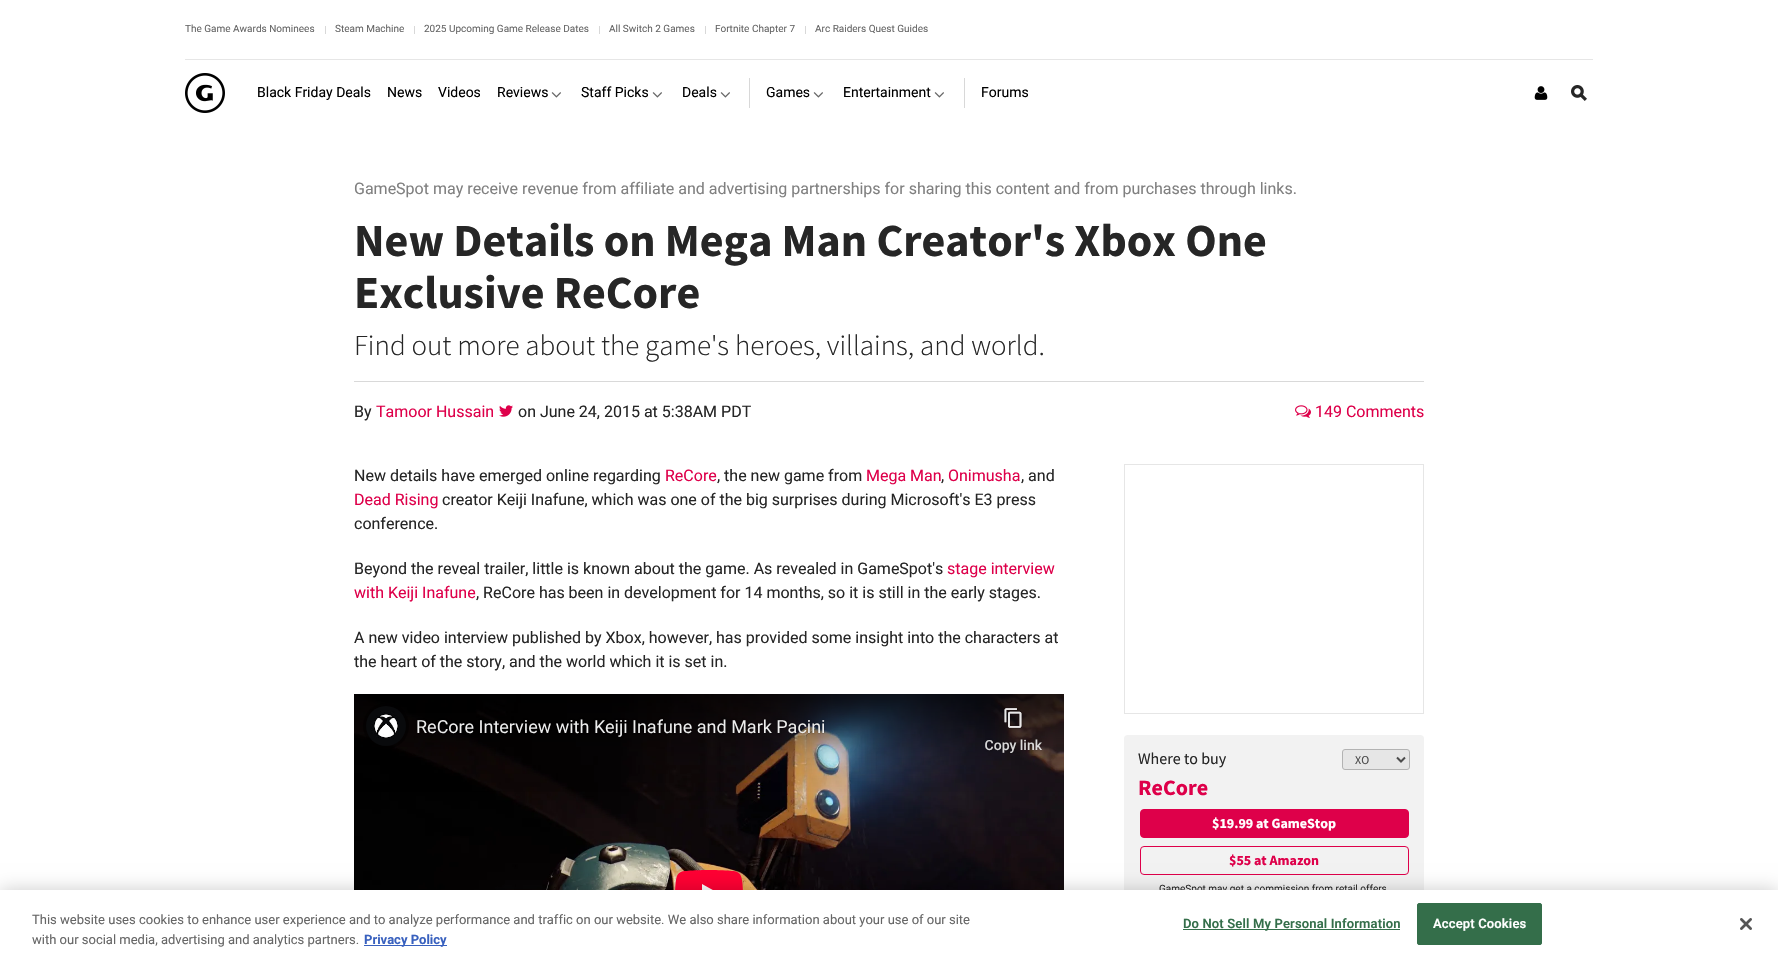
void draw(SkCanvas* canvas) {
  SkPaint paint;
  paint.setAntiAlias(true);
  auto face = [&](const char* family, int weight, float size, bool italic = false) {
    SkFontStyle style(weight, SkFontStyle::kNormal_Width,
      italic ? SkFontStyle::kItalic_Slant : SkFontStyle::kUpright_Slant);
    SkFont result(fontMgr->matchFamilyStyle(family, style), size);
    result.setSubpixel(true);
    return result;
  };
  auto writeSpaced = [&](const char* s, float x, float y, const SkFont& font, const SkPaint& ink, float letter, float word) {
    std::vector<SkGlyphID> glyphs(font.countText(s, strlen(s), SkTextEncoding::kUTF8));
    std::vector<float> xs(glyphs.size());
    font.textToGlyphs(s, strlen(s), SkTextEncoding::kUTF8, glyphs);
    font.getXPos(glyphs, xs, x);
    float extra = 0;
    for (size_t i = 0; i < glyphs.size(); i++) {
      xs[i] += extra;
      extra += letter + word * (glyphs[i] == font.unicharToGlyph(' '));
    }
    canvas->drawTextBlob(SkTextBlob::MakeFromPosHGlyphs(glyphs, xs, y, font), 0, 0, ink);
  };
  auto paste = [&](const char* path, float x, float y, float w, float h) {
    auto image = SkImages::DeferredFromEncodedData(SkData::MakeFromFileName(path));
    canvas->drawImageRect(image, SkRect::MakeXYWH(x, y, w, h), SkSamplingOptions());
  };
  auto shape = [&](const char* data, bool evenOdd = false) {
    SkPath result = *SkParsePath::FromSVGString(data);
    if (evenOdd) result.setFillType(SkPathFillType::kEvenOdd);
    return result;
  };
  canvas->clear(0xffffffff);
  {
    const struct { float x, y, w, h; SkColor color; } items[] = {
      {185, 59, 1408, 1, 0xffe6e6e6},
      {325, 26, 1, 8, 0xffd8d8d8},
      {414, 26, 1, 8, 0xffd8d8d8},
      {599, 26, 1, 8, 0xffd8d8d8},
      {705, 26, 1, 8, 0xffd8d8d8},
      {805, 26, 1, 8, 0xffd8d8d8},
    };
    for (auto [x, y, w, h, color] : items) {
      paint.setColor(color);
      canvas->drawRect(SkRect::MakeXYWH(x, y, w, h), paint);
    }
  }
  paste("img/1.png", 185, 73, 40, 40);
  paste("img/2.png", 551, 92, 10, 6);
  paste("img/2.png", 652, 92, 10, 6);
  paste("img/2.png", 720, 92, 10, 6);
  canvas->drawRect(SkRect::MakeXYWH(749, 78, 1, 30), paint);
  paste("img/2.png", 813, 92, 10, 6);
  paste("img/2.png", 934, 92, 10, 6);
  canvas->drawRect(SkRect::MakeXYWH(964, 78, 1, 30), paint);
  paste("img/3.png", 1534, 86, 14, 14);
  paste("img/4.png", 1571, 85, 16, 16);
  paint.setColor(0xffd9d9d9);
  canvas->drawRect(SkRect::MakeXYWH(354, 381, 1070, 1), paint);
  paste("img/5.png", 499, 405, 14, 12);
  paste("img/6.png", 1295, 405, 16, 13);
  paste("img/7.png", 354, 694, 710, 196);
  paint.setStroke(true);
  paint.setStrokeWidth(1);
  paint.setColor(0xffe6e6e6);
  canvas->drawRect(SkRect::MakeXYWH(1124.5f, 464.5f, 299, 249), paint);
  paint.setStroke(false);
  paint.setColor(0xfff2f2f2);
  canvas->drawRoundRect(SkRect::MakeXYWH(1124, 735, 300, 174), 4, 4, paint);
  paint.setColor(0xffe6e6e6);
  canvas->drawRoundRect(SkRect::MakeXYWH(1342.5f, 749.5f, 67, 20), 2.5f, 2.5f, paint);
  paint.setStroke(true);
  paint.setColor(0xffb3b3b3);
  canvas->drawRoundRect(SkRect::MakeXYWH(1342.5f, 749.5f, 67, 20), 2.5f, 2.5f, paint);
  paint.setStrokeWidth(2);
  paint.setColor(0xff4c4c4c);
  canvas->drawPath(shape("M1397 757.5L1401 761.5L1405 757.5"), paint);
  paint.setStroke(false);
  paint.setColor(0xffde004a);
  canvas->drawRoundRect(SkRect::MakeXYWH(1140.5f, 809.5f, 268, 28), 3.5f, 3.5f, paint);
  paint.setStroke(true);
  paint.setStrokeWidth(1);
  canvas->drawRoundRect(SkRect::MakeXYWH(1140.5f, 809.5f, 268, 28), 3.5f, 3.5f, paint);
  canvas->drawRoundRect(SkRect::MakeXYWH(1140.5f, 846.5f, 268, 28), 3.5f, 3.5f, paint);
  paint.setStroke(false);
  paint.setColor(0x33000000);
  paint.setMaskFilter(SkMaskFilter::MakeBlur(kNormal_SkBlurStyle, 9));
  canvas->drawRect(SkRect::MakeXYWH(0, 890, 1778, 71), paint);
  paint.setMaskFilter(nullptr);
  auto f0 = face("Roboto", 400, 10);
  paint.setColor(0xff666666);
  {
    const struct { const char* s; float x, y; } items[] = {
      {"The Game Awards Nominees", 185, 32},
      {"Steam Machine", 335, 32},
      {"2025 Upcoming Game Release Dates", 424, 32},
      {"All Switch 2 Games", 609, 32},
      {"Fortnite Chapter 7", 715, 32},
      {"Arc Raiders Quest Guides", 815, 32},
    };
    for (auto [s, x, y] : items) {
      canvas->drawString(s, x, y, f0, paint);
    }
  }
  auto f1 = face("Roboto", 400, 14);
  paint.setColor(0xff000000);
  {
    const struct { const char* s; float x, y; } items[] = {
      {"Black Friday Deals", 257, 97},
      {"News", 387, 97},
      {"Videos", 438, 97},
      {"Reviews", 497, 97},
      {"Staff Picks", 581, 97},
      {"Deals", 682, 97},
      {"Games", 766, 97},
      {"Entertainment", 843, 97},
      {"Forums", 981, 97},
    };
    for (auto [s, x, y] : items) {
      canvas->drawString(s, x, y, f1, paint);
    }
  }
  auto f2 = face("Roboto", 400, 16);
  paint.setColor(0xff808080);
  canvas->drawString("GameSpot may receive revenue from affiliate and advertising partnerships for sharing this content and from purchases through links.", 354, 194, f2, paint);
  auto f3 = face("Source Sans Pro", 700, 46);
  paint.setColor(0xff262626);
  canvas->drawString("New Details on Mega Man Creator's Xbox One", 354, 256, f3, paint);
  canvas->drawString("Exclusive ReCore", 354, 308, f3, paint);
  auto f4 = face("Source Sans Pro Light", 300, 29);
  canvas->drawString("Find out more about the game's heroes, villains, and world.", 354, 355, f4, paint);
  canvas->drawString("By", 354, 417, f2, paint);
  paint.setColor(0xffde004a);
  canvas->drawString("Tamoor Hussain", 376, 417, f2, paint);
  paint.setColor(0xff262626);
  canvas->drawString("on June 24, 2015 at 5:38AM PDT", 518, 417, f2, paint);
  paint.setColor(0xffde004a);
  canvas->drawString("149 Comments", 1315, 417, f2, paint);
  paint.setColor(0xff262626);
  canvas->drawString("New details have emerged online regarding", 354, 481, f2, paint);
  paint.setColor(0xffde004a);
  canvas->drawString("ReCore", 665, 481, f2, paint);
  paint.setColor(0xff262626);
  canvas->drawString(", the new game from", 717, 481, f2, paint);
  paint.setColor(0xffde004a);
  canvas->drawString("Mega Man", 866, 481, f2, paint);
  paint.setColor(0xff262626);
  canvas->drawString(",", 941, 481, f2, paint);
  paint.setColor(0xffde004a);
  canvas->drawString("Onimusha", 948, 481, f2, paint);
  paint.setColor(0xff262626);
  canvas->drawString(", and", 1021, 481, f2, paint);
  paint.setColor(0xffde004a);
  canvas->drawString("Dead Rising", 354, 505, f2, paint);
  paint.setColor(0xff262626);
  {
    const struct { const char* s; float x, y; } items[] = {
      {"creator Keiji Inafune, which was one of the big surprises during Microsoft's E3 press", 442, 505},
      {"conference.", 354, 529},
      {"Beyond the reveal trailer, little is known about the game. As revealed in GameSpot's", 354, 574},
    };
    for (auto [s, x, y] : items) {
      canvas->drawString(s, x, y, f2, paint);
    }
  }
  paint.setColor(0xffde004a);
  canvas->drawString("stage interview", 947, 574, f2, paint);
  canvas->drawString("with Keiji Inafune", 354, 598, f2, paint);
  paint.setColor(0xff262626);
  {
    const struct { const char* s; float x, y; } items[] = {
      {", ReCore has been in development for 14 months, so it is still in the early stages.", 476, 598},
      {"A new video interview published by Xbox, however, has provided some insight into the characters at", 354, 643},
      {"the heart of the story, and the world which it is set in.", 354, 667},
    };
    for (auto [s, x, y] : items) {
      canvas->drawString(s, x, y, f2, paint);
    }
  }
  auto f5 = face("Source Sans Pro", 400, 16);
  canvas->drawString("Where to buy", 1138, 764, f5, paint);
  auto f6 = face("Source Sans Pro", 400, 12);
  paint.setColor(0xff4c4c4c);
  canvas->drawString("XO", 1355, 764, f6, paint);
  auto f7 = face("Source Sans Pro", 700, 22);
  paint.setColor(0xffde004a);
  canvas->drawString("ReCore", 1138, 795, f7, paint);
  auto f8 = face("Source Sans Pro", 700, 14);
  paint.setColor(0xffffffff);
  canvas->drawString("$19.99 at GameStop", 1212, 828, f8, paint);
  paint.setColor(0xffde004a);
  canvas->drawString("$55 at Amazon", 1229, 865, f8, paint);
  paint.setColor(0xff262626);
  canvas->drawString("GameSpot may get a commission from retail offers", 1159, 892, f0, paint);
  paint.setColor(0xffffffff);
  canvas->drawRect(SkRect::MakeXYWH(0, 890, 1778, 71), paint);
  auto f9 = face("Roboto", 400, 13);
  paint.setColor(0xff666666);
  canvas->drawString("This website uses cookies to enhance user experience and to analyze performance and traffic on our website. We also share information about your use of our site", 32, 924, f9, paint);
  canvas->drawString("with our social media, advertising and analytics partners.", 32, 944, f9, paint);
  paint.setColor(0xff3860be);
  canvas->drawRect(SkRect::MakeXYWH(364, 945, 83, 1), paint);
  auto f10 = face("Roboto", 700, 13);
  canvas->drawString("Privacy Policy", 364, 944, f10, paint);
  paint.setColor(0xff346e4a);
  canvas->drawRect(SkRect::MakeXYWH(1183, 929, 217, 1), paint);
  auto f11 = face("Roboto", 600, 13);
  writeSpaced("Do Not Sell My Personal Information", 1183, 928, f11, paint, 0.15f, 0);
  canvas->drawRoundRect(SkRect::MakeXYWH(1417.5f, 903.5f, 124, 41), 1.5f, 1.5f, paint);
  paint.setStroke(true);
  canvas->drawRoundRect(SkRect::MakeXYWH(1417.5f, 903.5f, 124, 41), 1.5f, 1.5f, paint);
  paint.setStroke(false);
  paint.setColor(0xffffffff);
  writeSpaced("Accept Cookies", 1433, 928, f11, paint, 0.15f, 0);
  paste("img/8.png", 1740, 918, 12, 12);
}
